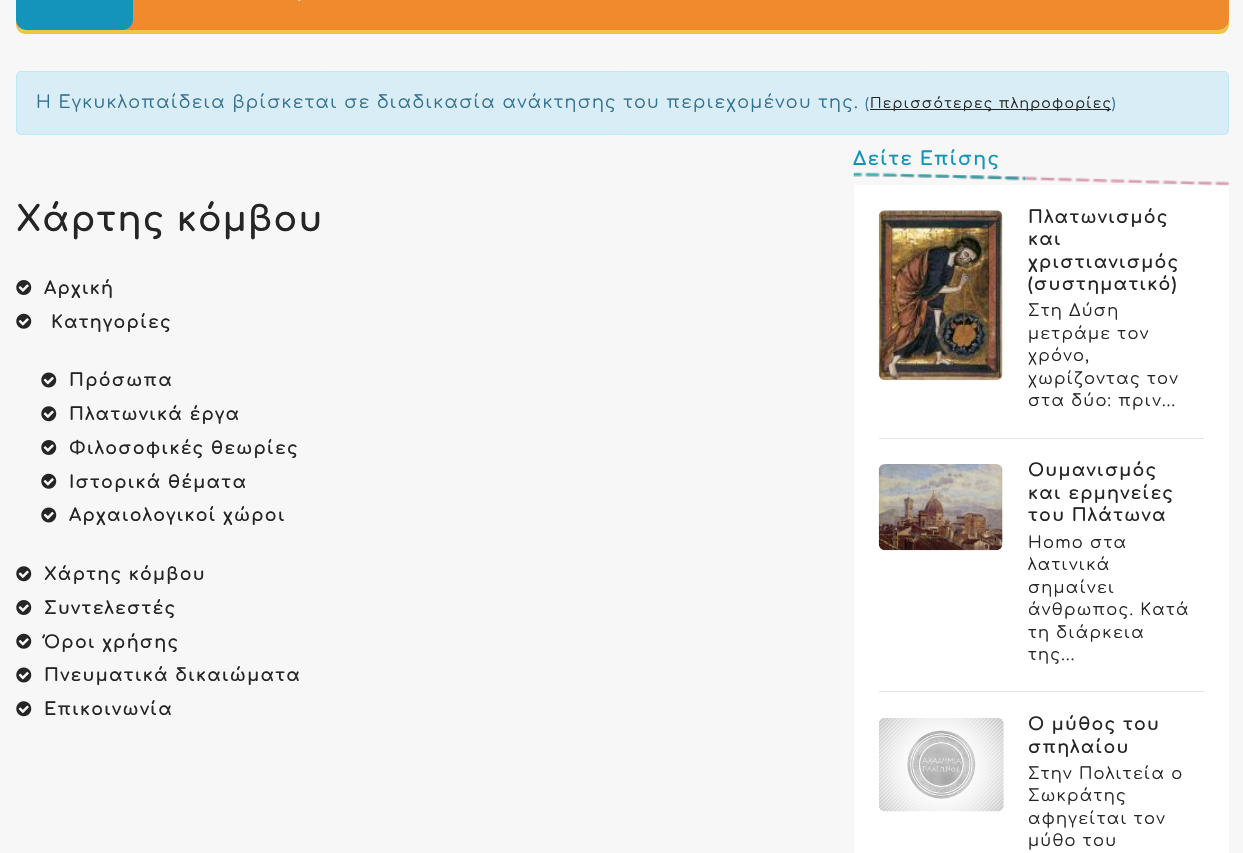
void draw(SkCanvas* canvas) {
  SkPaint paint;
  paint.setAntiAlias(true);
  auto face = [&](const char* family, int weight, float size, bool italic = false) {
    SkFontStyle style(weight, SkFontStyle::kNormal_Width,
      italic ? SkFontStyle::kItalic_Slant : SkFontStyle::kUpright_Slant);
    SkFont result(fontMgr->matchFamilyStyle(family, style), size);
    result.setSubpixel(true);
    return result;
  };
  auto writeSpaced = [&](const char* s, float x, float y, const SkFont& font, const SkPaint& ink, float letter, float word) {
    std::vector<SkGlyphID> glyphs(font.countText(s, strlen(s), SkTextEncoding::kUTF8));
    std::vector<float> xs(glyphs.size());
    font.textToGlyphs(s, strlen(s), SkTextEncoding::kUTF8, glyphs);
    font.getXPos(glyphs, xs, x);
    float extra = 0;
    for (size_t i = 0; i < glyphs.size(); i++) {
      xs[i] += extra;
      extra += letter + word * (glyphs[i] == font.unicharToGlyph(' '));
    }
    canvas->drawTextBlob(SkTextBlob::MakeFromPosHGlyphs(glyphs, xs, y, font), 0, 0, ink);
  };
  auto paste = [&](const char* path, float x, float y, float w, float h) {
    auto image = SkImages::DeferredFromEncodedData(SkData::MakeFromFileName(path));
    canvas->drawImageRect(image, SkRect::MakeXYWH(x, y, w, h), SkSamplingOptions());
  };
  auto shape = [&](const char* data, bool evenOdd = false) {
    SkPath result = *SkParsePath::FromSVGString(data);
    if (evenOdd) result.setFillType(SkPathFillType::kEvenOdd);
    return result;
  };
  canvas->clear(0xfff7f7f7);
  paint.setColor(0xffebc844);
  canvas->drawPath(shape("M16-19V24C16 30 20 34 26 34H1219C1225 34 1229 30 1229 24V-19V20C1229 26 1224 30 1219 30H26C21 30 16 26 16 20Z"), paint);
  paint.setColor(0xffef8b2c);
  canvas->drawRoundRect(SkRect::MakeXYWH(16, -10, 1213, 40), 10, 10, paint);
  paint.setColor(0xff1395ba);
  canvas->drawRoundRect(SkRect::MakeXYWH(16, -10, 117, 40), 10, 10, paint);
  paste("img/1.png", 298, 0, 3, 1);
  paint.setColor(0xffd9edf7);
  canvas->drawRoundRect(SkRect::MakeXYWH(16.5f, 71.5f, 1212, 63), 4.5f, 4.5f, paint);
  paint.setStroke(true);
  paint.setStrokeWidth(1);
  paint.setColor(0xffbce8f1);
  canvas->drawRoundRect(SkRect::MakeXYWH(16.5f, 71.5f, 1212, 63), 4.5f, 4.5f, paint);
  paint.setStroke(false);
  paint.setColor(0xff252525);
  canvas->drawRect(SkRect::MakeXYWH(870, 109, 241, 1), paint);
  paste("img/2.png", 16, 280, 16, 15);
  paste("img/3.png", 16, 313, 16, 16);
  paste("img/4.png", 41, 372, 16, 16);
  paste("img/5.png", 41, 406, 16, 16);
  paste("img/2.png", 41, 440, 16, 15);
  paste("img/3.png", 41, 473, 16, 16);
  paste("img/4.png", 41, 507, 16, 16);
  paste("img/5.png", 16, 566, 16, 16);
  paste("img/2.png", 16, 600, 16, 15);
  paste("img/3.png", 16, 633, 16, 16);
  paste("img/4.png", 16, 667, 16, 16);
  paste("img/5.png", 16, 701, 16, 16);
  paint.setColor(0xffffffff);
  canvas->drawRect(SkRect::MakeXYWH(854, 185, 375, 668), paint);
  paste("img/6.png", 853, 175, 376, 11);
  paste("img/7.png", 853, 172, 172, 9);
  paste("img/8.png", 878, 210, 125, 171);
  paint.setColor(0xffe4e4e4);
  canvas->drawRect(SkRect::MakeXYWH(879, 438, 325, 1), paint);
  paste("img/9.png", 878, 464, 125, 87);
  canvas->drawRect(SkRect::MakeXYWH(879, 691, 325, 1), paint);
  paste("img/10.png", 879, 718, 125, 94);
  auto f0 = face("Comfortaa", 400, 17.5f);
  paint.setColor(0xff31708f);
  writeSpaced("Η Εγκυκλοπαίδεια βρίσκεται σε διαδικασία ανάκτησης του περιεχομένου της.", 36, 108, f0, paint, 1.25f, 0);
  auto f1 = face("Comfortaa", 400, 14);
  writeSpaced("(", 865, 108, f1, paint, 1.25f, 0);
  paint.setColor(0xff252525);
  writeSpaced("Περισσότερες πληροφορίες", 870, 108, f1, paint, 1.25f, 0);
  paint.setColor(0xff31708f);
  writeSpaced(")", 1112, 108, f1, paint, 1.25f, 0);
  auto f2 = face("Comfortaa", 700, 35);
  paint.setColor(0xff252525);
  writeSpaced("Χάρτης κόμβου", 16, 231, f2, paint, 1.25f, 0);
  auto f3 = face("Comfortaa", 700, 17.5f);
  {
    const struct { const char* s; float x, y; } items[] = {
      {"Αρχική", 44, 294},
      {"Κατηγορίες", 51, 328},
      {"Πρόσωπα", 69, 386},
      {"Πλατωνικά έργα", 69, 420},
      {"Φιλοσοφικές θεωρίες", 69, 454},
      {"Ιστορικά θέματα", 69, 488},
      {"Αρχαιολογικοί χώροι", 69, 521},
      {"Χάρτης κόμβου", 44, 580},
      {"Συντελεστές", 44, 614},
      {"Όροι χρήσης", 44, 648},
      {"Πνευματικά δικαιώματα", 44, 681},
      {"Επικοινωνία", 44, 715},
    };
    for (auto [s, x, y] : items) {
      writeSpaced(s, x, y, f3, paint, 1.25f, 0);
    }
  }
  auto f4 = face("Comfortaa", 700, 18.75f);
  paint.setColor(0xff1395ba);
  writeSpaced("Δείτε Επίσης", 853, 165, f4, paint, 1.25f, 0);
  paint.setColor(0xff252525);
  {
    const struct { const char* s; float x, y; } items[] = {
      {"Πλατωνισμός", 1028, 223},
      {"και", 1028, 245},
      {"χριστιανισμός", 1028, 268},
      {"(συστηματικό)", 1028, 290},
    };
    for (auto [s, x, y] : items) {
      writeSpaced(s, x, y, f3, paint, 1.25f, 0);
    }
  }
  auto f5 = face("Comfortaa", 400, 16.25f);
  {
    const struct { const char* s; float x, y; } items[] = {
      {"Στη Δύση", 1028, 316},
      {"μετράμε τον", 1028, 339},
      {"χρόνο,", 1028, 361},
      {"χωρίζοντας τον", 1028, 384},
      {"στα δύο: πριν...", 1028, 406},
    };
    for (auto [s, x, y] : items) {
      writeSpaced(s, x, y, f5, paint, 1.25f, 0);
    }
  }
  {
    const struct { const char* s; float x, y; } items[] = {
      {"Ουμανισμός", 1028, 476},
      {"και ερμηνείες", 1028, 499},
      {"του Πλάτωνα", 1028, 521},
    };
    for (auto [s, x, y] : items) {
      writeSpaced(s, x, y, f3, paint, 1.25f, 0);
    }
  }
  {
    const struct { const char* s; float x, y; } items[] = {
      {"Homo στα", 1028, 548},
      {"λατινικά", 1028, 570},
      {"σημαίνει", 1028, 593},
      {"άνθρωπος. Κατά", 1028, 615},
      {"τη διάρκεια", 1028, 638},
      {"της...", 1028, 660},
    };
    for (auto [s, x, y] : items) {
      writeSpaced(s, x, y, f5, paint, 1.25f, 0);
    }
  }
  writeSpaced("Ο μύθος του", 1028, 730, f3, paint, 1.25f, 0);
  writeSpaced("σπηλαίου", 1028, 753, f3, paint, 1.25f, 0);
  {
    const struct { const char* s; float x, y; } items[] = {
      {"Στην Πολιτεία ο", 1028, 779},
      {"Σωκράτης", 1028, 801},
      {"αφηγείται τον", 1028, 824},
      {"μύθο του", 1028, 846},
    };
    for (auto [s, x, y] : items) {
      writeSpaced(s, x, y, f5, paint, 1.25f, 0);
    }
  }
}
